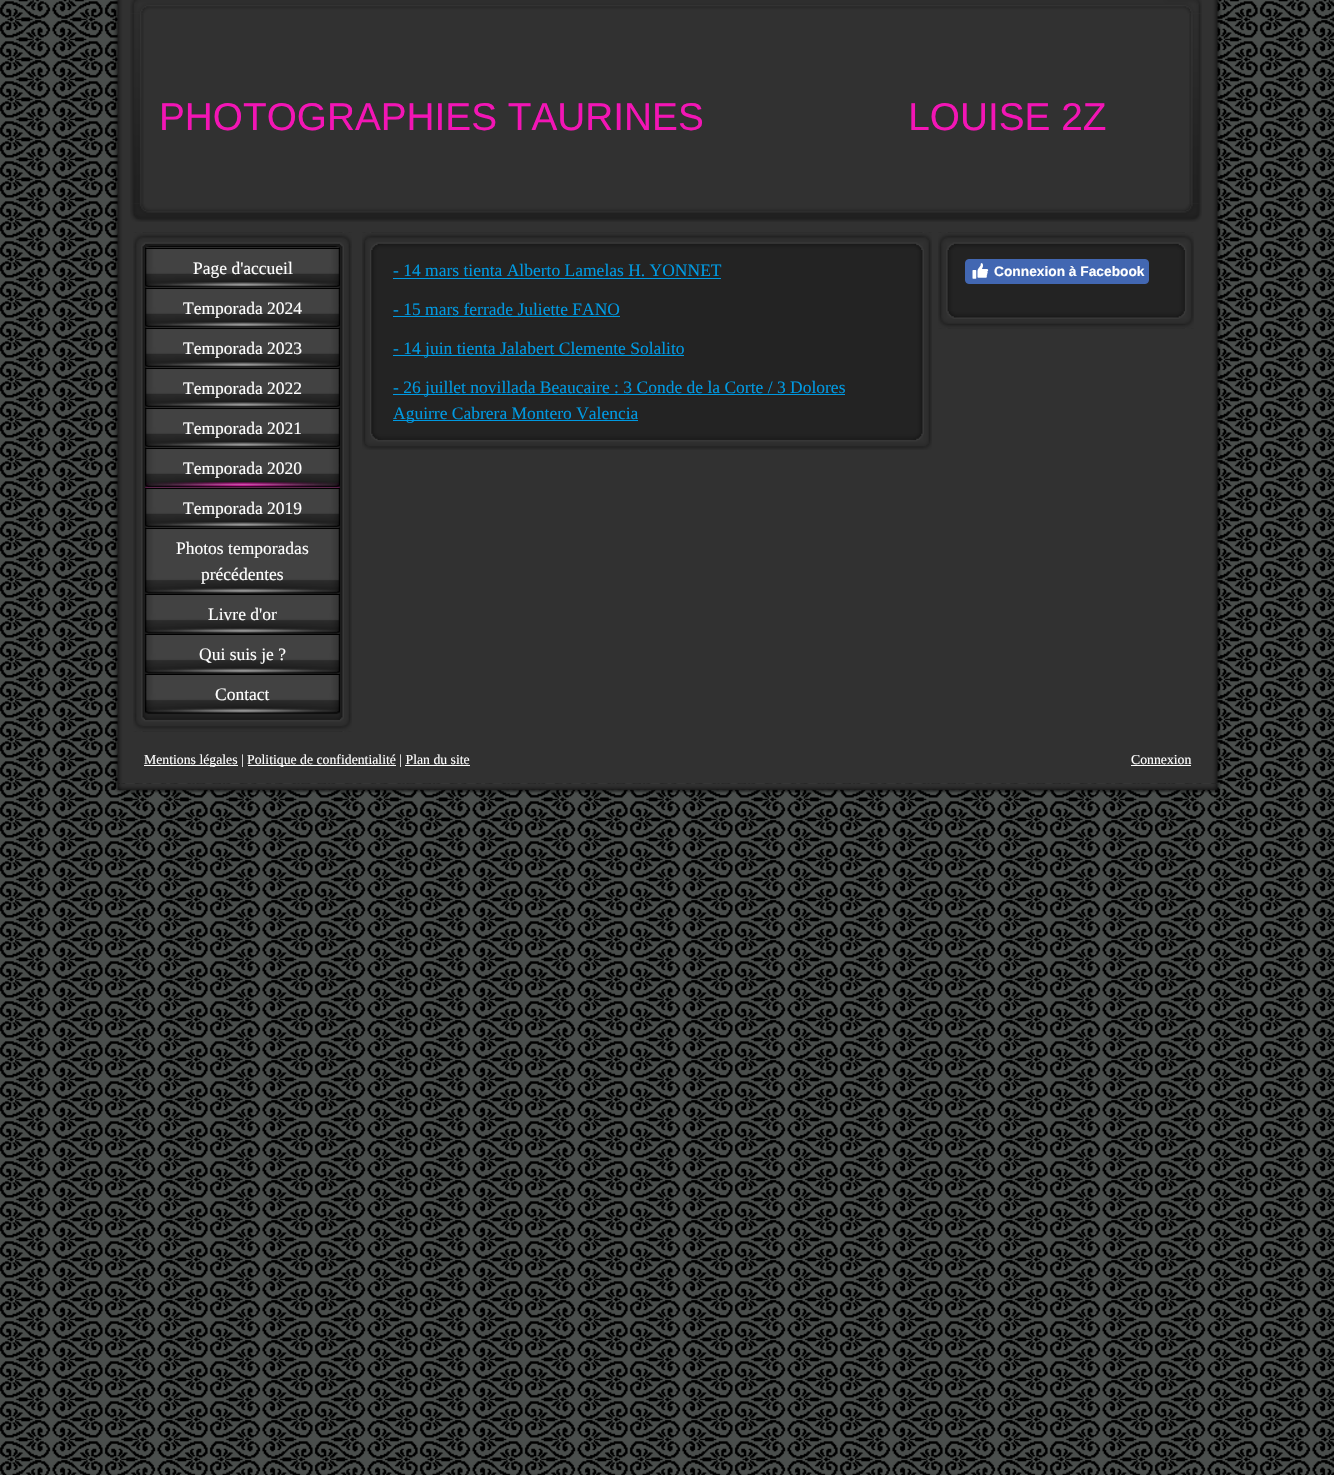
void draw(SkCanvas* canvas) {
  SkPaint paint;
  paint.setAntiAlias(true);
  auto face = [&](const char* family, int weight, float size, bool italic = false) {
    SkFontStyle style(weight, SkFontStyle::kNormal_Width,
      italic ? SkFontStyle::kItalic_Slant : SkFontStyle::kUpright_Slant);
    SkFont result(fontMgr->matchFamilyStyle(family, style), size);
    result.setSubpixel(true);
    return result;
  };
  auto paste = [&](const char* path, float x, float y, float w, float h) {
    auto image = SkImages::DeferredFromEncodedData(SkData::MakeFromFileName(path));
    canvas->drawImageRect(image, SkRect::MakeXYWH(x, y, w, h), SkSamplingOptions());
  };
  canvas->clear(0xff4a4e4c);
  paste("img/1.png", 0, 0, 1334, 1475);
  paste("img/2.png", 113, 0, 1109, 784);
  paste("img/3.png", 130, 0, 1072, 14);
  paste("img/4.png", 130, 14, 14, 190);
  paste("img/6.png", 130, 203, 1072, 19);
  paste("img/5.png", 1189, 14, 13, 190);
  paste("img/7.png", 133, 232, 219, 500);
  paste("img/8.png", 133, 232, 219, 16);
  paste("img/9.png", 145, 247, 195, 41);
  paint.setColor(0xff000000);
  canvas->drawRect(SkRect::MakeXYWH(145, 248, 195, 1), paint);
  paste("img/10.png", 145, 287, 195, 41);
  canvas->drawRect(SkRect::MakeXYWH(145, 288, 195, 1), paint);
  paste("img/11.png", 145, 327, 195, 41);
  canvas->drawRect(SkRect::MakeXYWH(145, 328, 195, 1), paint);
  paste("img/11.png", 145, 367, 195, 41);
  canvas->drawRect(SkRect::MakeXYWH(145, 368, 195, 1), paint);
  paste("img/11.png", 145, 407, 195, 41);
  canvas->drawRect(SkRect::MakeXYWH(145, 408, 195, 1), paint);
  paint.setColor(0xfff315b5);
  canvas->drawRect(SkRect::MakeXYWH(145, 482, 195, 6), paint);
  paste("img/12.png", 145, 447, 195, 41);
  paint.setColor(0xff000000);
  canvas->drawRect(SkRect::MakeXYWH(145, 448, 195, 1), paint);
  paste("img/13.png", 145, 487, 195, 41);
  canvas->drawRect(SkRect::MakeXYWH(145, 488, 195, 1), paint);
  paste("img/14.png", 145, 527, 195, 67);
  canvas->drawRect(SkRect::MakeXYWH(145, 528, 195, 1), paint);
  paste("img/15.png", 145, 593, 195, 41);
  canvas->drawRect(SkRect::MakeXYWH(145, 594, 195, 1), paint);
  paste("img/15.png", 145, 633, 195, 41);
  canvas->drawRect(SkRect::MakeXYWH(145, 634, 195, 1), paint);
  paste("img/15.png", 145, 673, 195, 41);
  canvas->drawRect(SkRect::MakeXYWH(145, 674, 195, 1), paint);
  paste("img/16.png", 133, 713, 219, 18);
  paste("img/17.png", 362, 232, 570, 201);
  paste("img/18.png", 362, 232, 570, 18);
  {
    const struct { float x, y, w, h; SkColor color; } items[] = {
      {393, 278, 328, 1, 0xff0099e1},
      {393, 316, 227, 1, 0xff0099e1},
      {393, 355, 291, 1, 0xff0099e1},
      {393, 394, 452, 1, 0xff0099e1},
      {393, 420, 245, 1, 0xff0099e1},
    };
    for (auto [x, y, w, h, color] : items) {
      paint.setColor(color);
      canvas->drawRect(SkRect::MakeXYWH(x, y, w, h), paint);
    }
  }
  paste("img/19.png", 362, 433, 570, 17);
  paste("img/20.png", 938, 232, 256, 97);
  paste("img/21.png", 938, 232, 256, 18);
  paint.setColor(0xff4267b2);
  canvas->drawRoundRect(SkRect::MakeXYWH(965.5f, 259.5f, 183, 24), 3.5f, 3.5f, paint);
  paint.setStroke(true);
  paint.setStrokeWidth(1);
  canvas->drawRoundRect(SkRect::MakeXYWH(965.5f, 259.5f, 183, 24), 3.5f, 3.5f, paint);
  paste("img/22.png", 972, 263, 17, 16);
  paste("img/23.png", 938, 311, 256, 18);
  paint.setStroke(false);
  {
    const struct { float x, y, w, h; SkColor color; } items[] = {
      {144, 765, 94, 1, 0xffffffff},
      {248, 765, 148, 1, 0xffffffff},
      {405, 765, 65, 1, 0xffffffff},
      {1131, 765, 60, 1, 0xffffffff},
    };
    for (auto [x, y, w, h, color] : items) {
      paint.setColor(color);
      canvas->drawRect(SkRect::MakeXYWH(x, y, w, h), paint);
    }
  }
  paste("img/24.png", 115, 783, 1107, 10);
  auto f0 = face("Liberation Sans", 400, 38.75f);
  paint.setColor(0xfff315b5);
  canvas->drawString("PHOTOGRAPHIES TAURINES                   LOUISE 2Z", 159, 130, f0, paint);
  auto f1 = face("Liberation Serif", 400, 17.5f);
  paint.setColor(0xffffffff);
  {
    const struct { const char* s; float x, y; } items[] = {
      {"Page d'accueil", 193, 274},
      {"Temporada 2024", 183, 314},
      {"Temporada 2023", 183, 354},
      {"Temporada 2022", 183, 394},
      {"Temporada 2021", 183, 434},
      {"Temporada 2020", 183, 474},
      {"Temporada 2019", 183, 514},
      {"Photos temporadas", 176, 554},
      {"précédentes", 201, 580},
      {"Livre d'or", 208, 620},
      {"Qui suis je ?", 199, 660},
      {"Contact", 215, 700},
    };
    for (auto [s, x, y] : items) {
      canvas->drawString(s, x, y, f1, paint);
    }
  }
  paint.setColor(0xff0099e1);
  {
    const struct { const char* s; float x, y; } items[] = {
      {"- 14 mars tienta Alberto Lamelas H. YONNET", 393, 276},
      {"- 15 mars ferrade Juliette FANO", 393, 315},
      {"- 14 juin tienta Jalabert Clemente Solalito", 393, 354},
      {"- 26 juillet novillada Beaucaire : 3 Conde de la Corte / 3 Dolores", 393, 393},
      {"Aguirre Cabrera Montero Valencia", 393, 419},
    };
    for (auto [s, x, y] : items) {
      canvas->drawString(s, x, y, f1, paint);
    }
  }
  auto f2 = face("Liberation Sans", 700, 13.75f);
  paint.setColor(0xffffffff);
  canvas->drawString("Connexion à Facebook", 994, 276, f2, paint);
  auto f3 = face("Liberation Serif", 400, 13.75f);
  {
    const struct { const char* s; float x, y; } items[] = {
      {"Mentions légales |", 144, 764},
      {"Politique de confidentialité | Plan du site", 247, 764},
      {"Connexion", 1131, 764},
    };
    for (auto [s, x, y] : items) {
      canvas->drawString(s, x, y, f3, paint);
    }
  }
}
